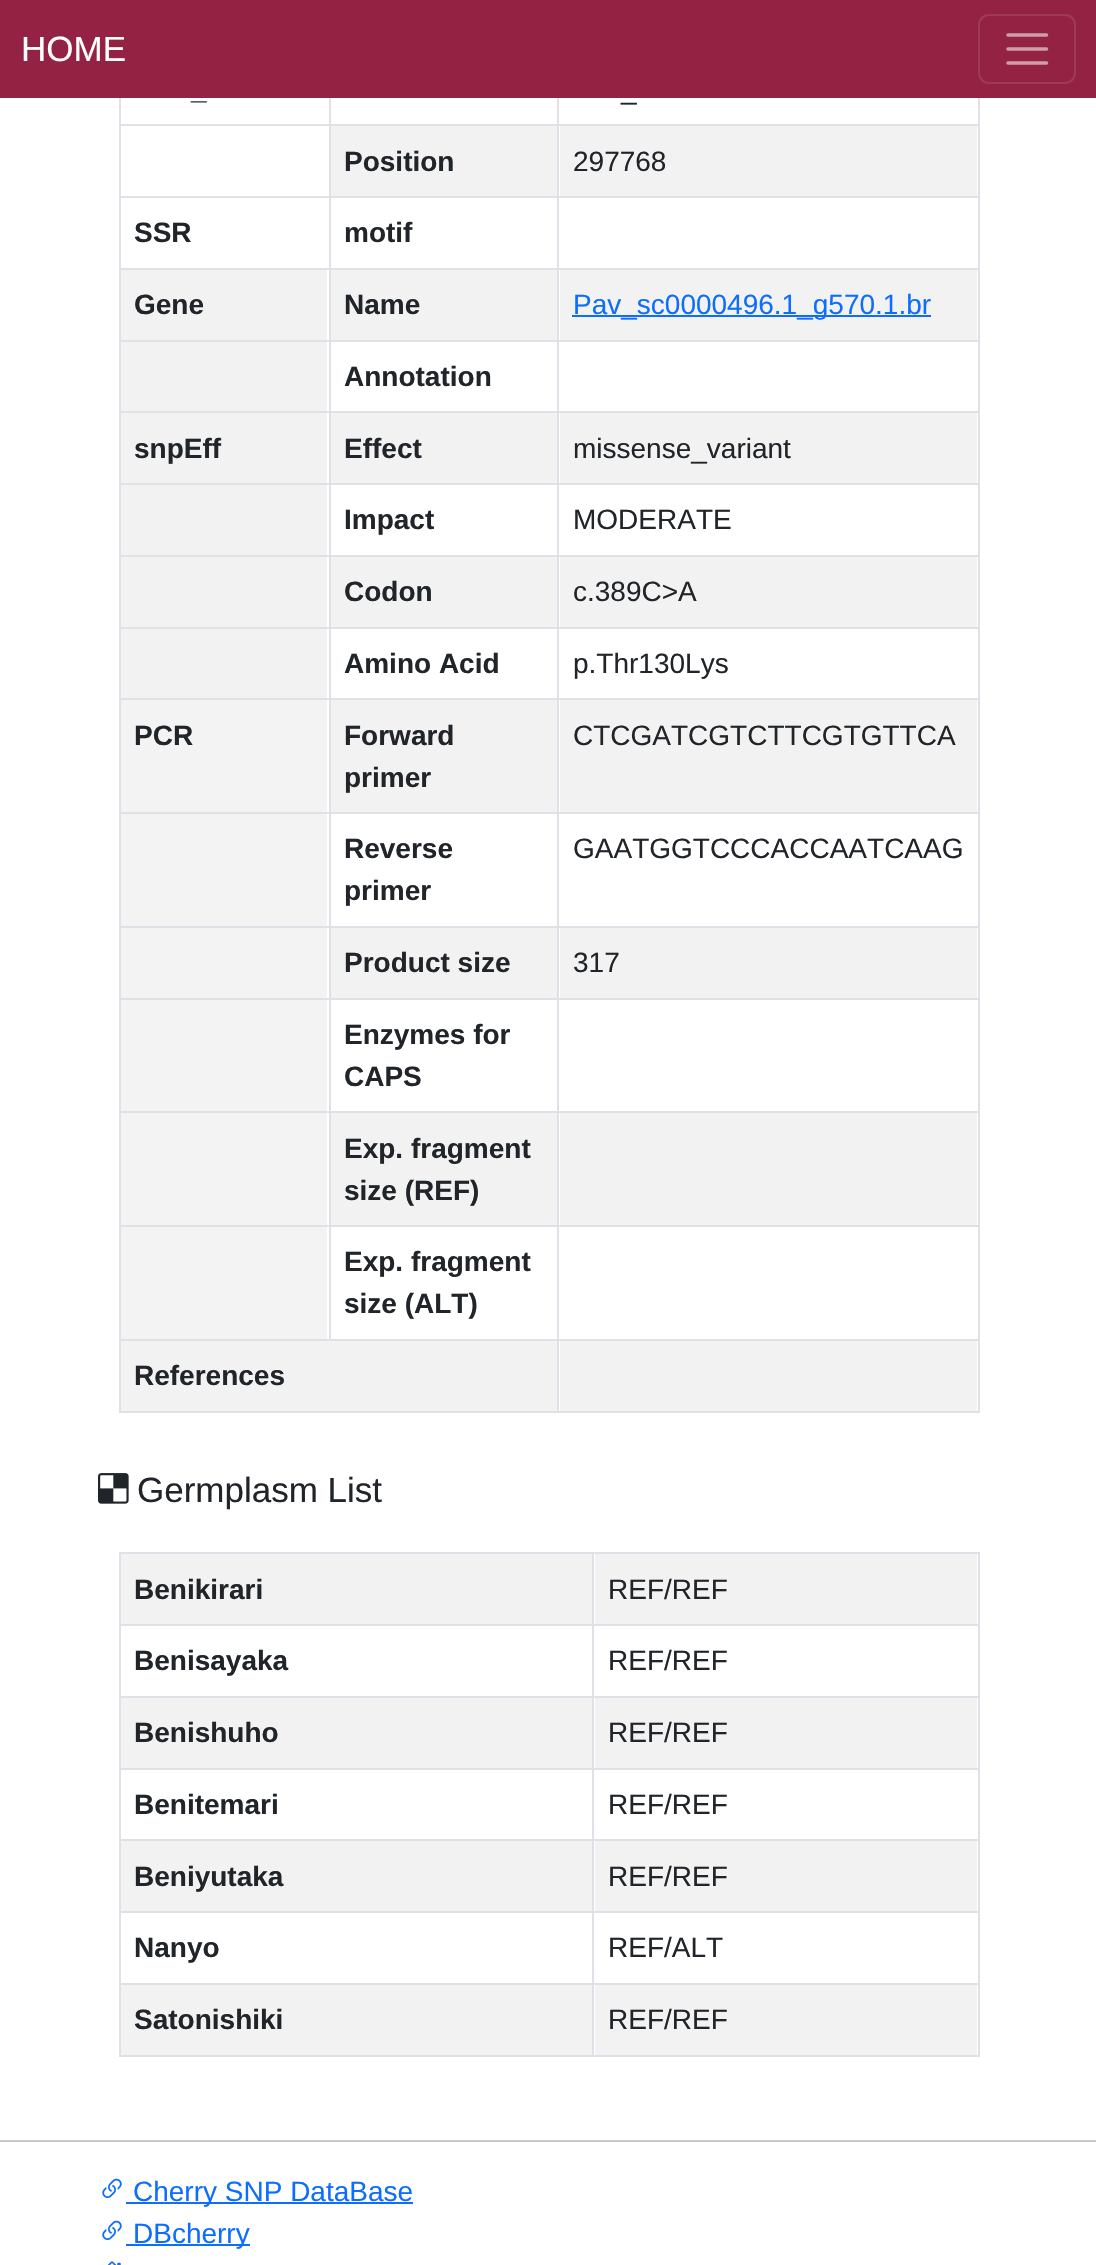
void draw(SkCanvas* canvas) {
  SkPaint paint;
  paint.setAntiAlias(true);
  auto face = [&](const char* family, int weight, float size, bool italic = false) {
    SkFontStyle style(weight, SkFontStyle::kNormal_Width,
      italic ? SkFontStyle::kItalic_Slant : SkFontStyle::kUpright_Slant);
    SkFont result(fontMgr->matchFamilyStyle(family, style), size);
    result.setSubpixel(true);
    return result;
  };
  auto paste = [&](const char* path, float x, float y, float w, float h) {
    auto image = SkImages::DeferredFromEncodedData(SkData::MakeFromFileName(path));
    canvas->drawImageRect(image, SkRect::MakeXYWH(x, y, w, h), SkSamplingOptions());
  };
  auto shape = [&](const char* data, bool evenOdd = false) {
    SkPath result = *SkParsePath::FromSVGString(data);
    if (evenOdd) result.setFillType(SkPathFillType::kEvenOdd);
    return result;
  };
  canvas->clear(0xffffffff);
  paint.setColor(0xff942343);
  canvas->drawRect(SkRect::MakeXYWH(0, 0, 1096, 98), paint);
  paint.setStroke(true);
  paint.setStrokeWidth(2);
  paint.setColor(0xff9f3956);
  canvas->drawRoundRect(SkRect::MakeXYWH(979, 15, 96, 68), 10, 10, paint);
  paint.setStrokeWidth(3.5f);
  paint.setStrokeCap(SkPaint::kRound_Cap);
  paint.setColor(0xffcf9caa);
  canvas->drawPath(shape("M1008 35H1046.5M1008 49H1046.5M1008 63H1046.5"), paint);
  paint.setStroke(false);
  {
    const struct { float x, y, w, h; SkColor color; } items[] = {
      {119, 124, 861, 2, 0xffdee2e6},
      {331, 126, 226, 70, 0xfff2f2f2},
      {560, 126, 417, 70, 0xfff2f2f2},
      {119, 196, 861, 2, 0xffdee2e6},
      {119, 268, 861, 2, 0xffdee2e6},
      {121, 270, 206, 141, 0xfff2f2f2},
      {331, 270, 226, 70, 0xfff2f2f2},
      {560, 270, 417, 70, 0xfff2f2f2},
      {572, 315, 359, 2, 0xff0d6efd},
      {119, 340, 861, 2, 0xffdee2e6},
      {119, 411, 861, 2, 0xffdee2e6},
      {121, 413, 206, 285, 0xfff2f2f2},
      {331, 413, 226, 70, 0xfff2f2f2},
      {560, 413, 417, 70, 0xfff2f2f2},
      {119, 483, 861, 2, 0xffdee2e6},
      {119, 555, 861, 2, 0xffdee2e6},
      {331, 557, 226, 70, 0xfff2f2f2},
      {560, 557, 417, 70, 0xfff2f2f2},
      {119, 627, 861, 2, 0xffdee2e6},
      {119, 698, 861, 2, 0xffdee2e6},
      {121, 700, 206, 639, 0xfff3f3f3},
      {331, 700, 226, 112, 0xfff2f2f2},
      {560, 700, 417, 112, 0xfff2f2f2},
      {119, 812, 861, 2, 0xffdee2e6},
      {119, 926, 861, 2, 0xffdee2e6},
      {331, 928, 226, 70, 0xfff2f2f2},
      {560, 928, 417, 70, 0xfff2f2f2},
      {119, 998, 861, 2, 0xffdee2e6},
      {119, 1111, 861, 2, 0xffdee2e6},
      {331, 1113, 226, 112, 0xfff2f2f2},
      {560, 1113, 417, 112, 0xfff2f2f2},
      {119, 1225, 861, 2, 0xffdee2e6},
      {119, 1339, 861, 2, 0xffdee2e6},
      {329, 98, 2, 1243, 0xffdee2e6},
      {119, 1411, 861, 2, 0xffdee2e6},
      {121, 1341, 436, 70, 0xfff2f2f2},
      {119, 98, 2, 1314, 0xffdee2e6},
      {560, 1341, 417, 70, 0xfff2f2f2},
      {978, 98, 2, 1314, 0xffdee2e6},
      {557, 98, 2, 1314, 0xffdee2e6},
    };
    for (auto [x, y, w, h, color] : items) {
      paint.setColor(color);
      canvas->drawRect(SkRect::MakeXYWH(x, y, w, h), paint);
    }
  }
  paste("img/1.png", 98, 1473, 31, 31);
  {
    const struct { float x, y, w, h; SkColor color; } items[] = {
      {119, 1552, 861, 2, 0xffdee2e6},
      {121, 1554, 471, 70, 0xfff2f2f2},
      {595, 1554, 382, 70, 0xfff2f2f2},
      {119, 1624, 861, 2, 0xffdee2e6},
      {119, 1696, 861, 2, 0xffdee2e6},
      {121, 1698, 471, 70, 0xfff2f2f2},
      {595, 1698, 382, 70, 0xfff2f2f2},
      {119, 1768, 861, 2, 0xffdee2e6},
      {119, 1839, 861, 2, 0xffdee2e6},
      {121, 1841, 471, 70, 0xfff2f2f2},
      {595, 1841, 382, 70, 0xfff2f2f2},
      {119, 1911, 861, 2, 0xffdee2e6},
      {119, 1983, 861, 2, 0xffdee2e6},
      {119, 2055, 861, 2, 0xffdee2e6},
      {121, 1985, 471, 70, 0xfff2f2f2},
      {119, 1552, 2, 504, 0xffdee2e6},
      {595, 1985, 382, 70, 0xfff2f2f2},
      {978, 1552, 2, 504, 0xffdee2e6},
      {592, 1552, 2, 504, 0xffdee2e6},
      {0, 2140, 1096, 2, 0xffc8c9ca},
    };
    for (auto [x, y, w, h, color] : items) {
      paint.setColor(color);
      canvas->drawRect(SkRect::MakeXYWH(x, y, w, h), paint);
    }
  }
  paste("img/2.png", 102, 2178, 20, 20);
  paint.setColor(0xff0d6efd);
  canvas->drawRect(SkRect::MakeXYWH(126, 2202, 287, 2), paint);
  paste("img/2.png", 102, 2220, 20, 20);
  canvas->drawRect(SkRect::MakeXYWH(126, 2244, 124, 2), paint);
  paste("img/3.png", 107, 2261, 14, 4);
  auto f0 = face("Liberation Sans", 400, 35);
  paint.setColor(0xffffffff);
  canvas->drawString("HOME", 21, 61, f0, paint);
  auto f1 = face("Liberation Sans", 700, 28);
  paint.setColor(0xff212529);
  canvas->drawString("_", 191, 99, f1, paint);
  auto f2 = face("Liberation Sans", 400, 28);
  canvas->drawString("_", 621, 99, f2, paint);
  canvas->drawString("Position", 344, 171, f1, paint);
  canvas->drawString("297768", 573, 171, f2, paint);
  {
    const struct { const char* s; float x, y; } items[] = {
      {"SSR", 134, 242},
      {"motif", 344, 242},
      {"Gene", 134, 314},
      {"Name", 344, 314},
    };
    for (auto [s, x, y] : items) {
      canvas->drawString(s, x, y, f1, paint);
    }
  }
  paint.setColor(0xff0d6efd);
  canvas->drawString("Pav_sc0000496.1_g570.1.br", 573, 314, f2, paint);
  paint.setColor(0xff212529);
  {
    const struct { const char* s; float x, y; } items[] = {
      {"Annotation", 344, 386},
      {"snpEff", 134, 458},
      {"Effect", 344, 458},
    };
    for (auto [s, x, y] : items) {
      canvas->drawString(s, x, y, f1, paint);
    }
  }
  canvas->drawString("missense_variant", 573, 458, f2, paint);
  canvas->drawString("Impact", 344, 529, f1, paint);
  canvas->drawString("MODERATE", 573, 529, f2, paint);
  canvas->drawString("Codon", 344, 601, f1, paint);
  canvas->drawString("c.389C>A", 573, 601, f2, paint);
  canvas->drawString("Amino Acid", 344, 673, f1, paint);
  canvas->drawString("p.Thr130Lys", 573, 673, f2, paint);
  {
    const struct { const char* s; float x, y; } items[] = {
      {"PCR", 134, 745},
      {"Forward", 344, 745},
      {"primer", 344, 787},
    };
    for (auto [s, x, y] : items) {
      canvas->drawString(s, x, y, f1, paint);
    }
  }
  canvas->drawString("CTCGATCGTCTTCGTGTTCA", 573, 745, f2, paint);
  canvas->drawString("Reverse", 344, 858, f1, paint);
  canvas->drawString("primer", 344, 900, f1, paint);
  canvas->drawString("GAATGGTCCCACCAATCAAG", 573, 858, f2, paint);
  canvas->drawString("Product size", 344, 972, f1, paint);
  canvas->drawString("317", 573, 972, f2, paint);
  {
    const struct { const char* s; float x, y; } items[] = {
      {"Enzymes for", 344, 1044},
      {"CAPS", 344, 1086},
      {"Exp. fragment", 344, 1158},
      {"size (REF)", 344, 1200},
      {"Exp. fragment", 344, 1271},
      {"size (ALT)", 344, 1313},
      {"References", 134, 1385},
    };
    for (auto [s, x, y] : items) {
      canvas->drawString(s, x, y, f1, paint);
    }
  }
  canvas->drawString("Germplasm List", 137, 1502, f0, paint);
  canvas->drawString("Benikirari", 134, 1599, f1, paint);
  canvas->drawString("REF/REF", 608, 1599, f2, paint);
  canvas->drawString("Benisayaka", 134, 1670, f1, paint);
  canvas->drawString("REF/REF", 608, 1670, f2, paint);
  canvas->drawString("Benishuho", 134, 1742, f1, paint);
  canvas->drawString("REF/REF", 608, 1742, f2, paint);
  canvas->drawString("Benitemari", 134, 1814, f1, paint);
  canvas->drawString("REF/REF", 608, 1814, f2, paint);
  canvas->drawString("Beniyutaka", 134, 1886, f1, paint);
  canvas->drawString("REF/REF", 608, 1886, f2, paint);
  canvas->drawString("Nanyo", 134, 1957, f1, paint);
  canvas->drawString("REF/ALT", 608, 1957, f2, paint);
  canvas->drawString("Satonishiki", 134, 2029, f1, paint);
  canvas->drawString("REF/REF", 608, 2029, f2, paint);
  paint.setColor(0xff0d6efd);
  canvas->drawString("Cherry SNP DataBase", 133, 2201, f2, paint);
  canvas->drawString("DBcherry", 133, 2243, f2, paint);
}
